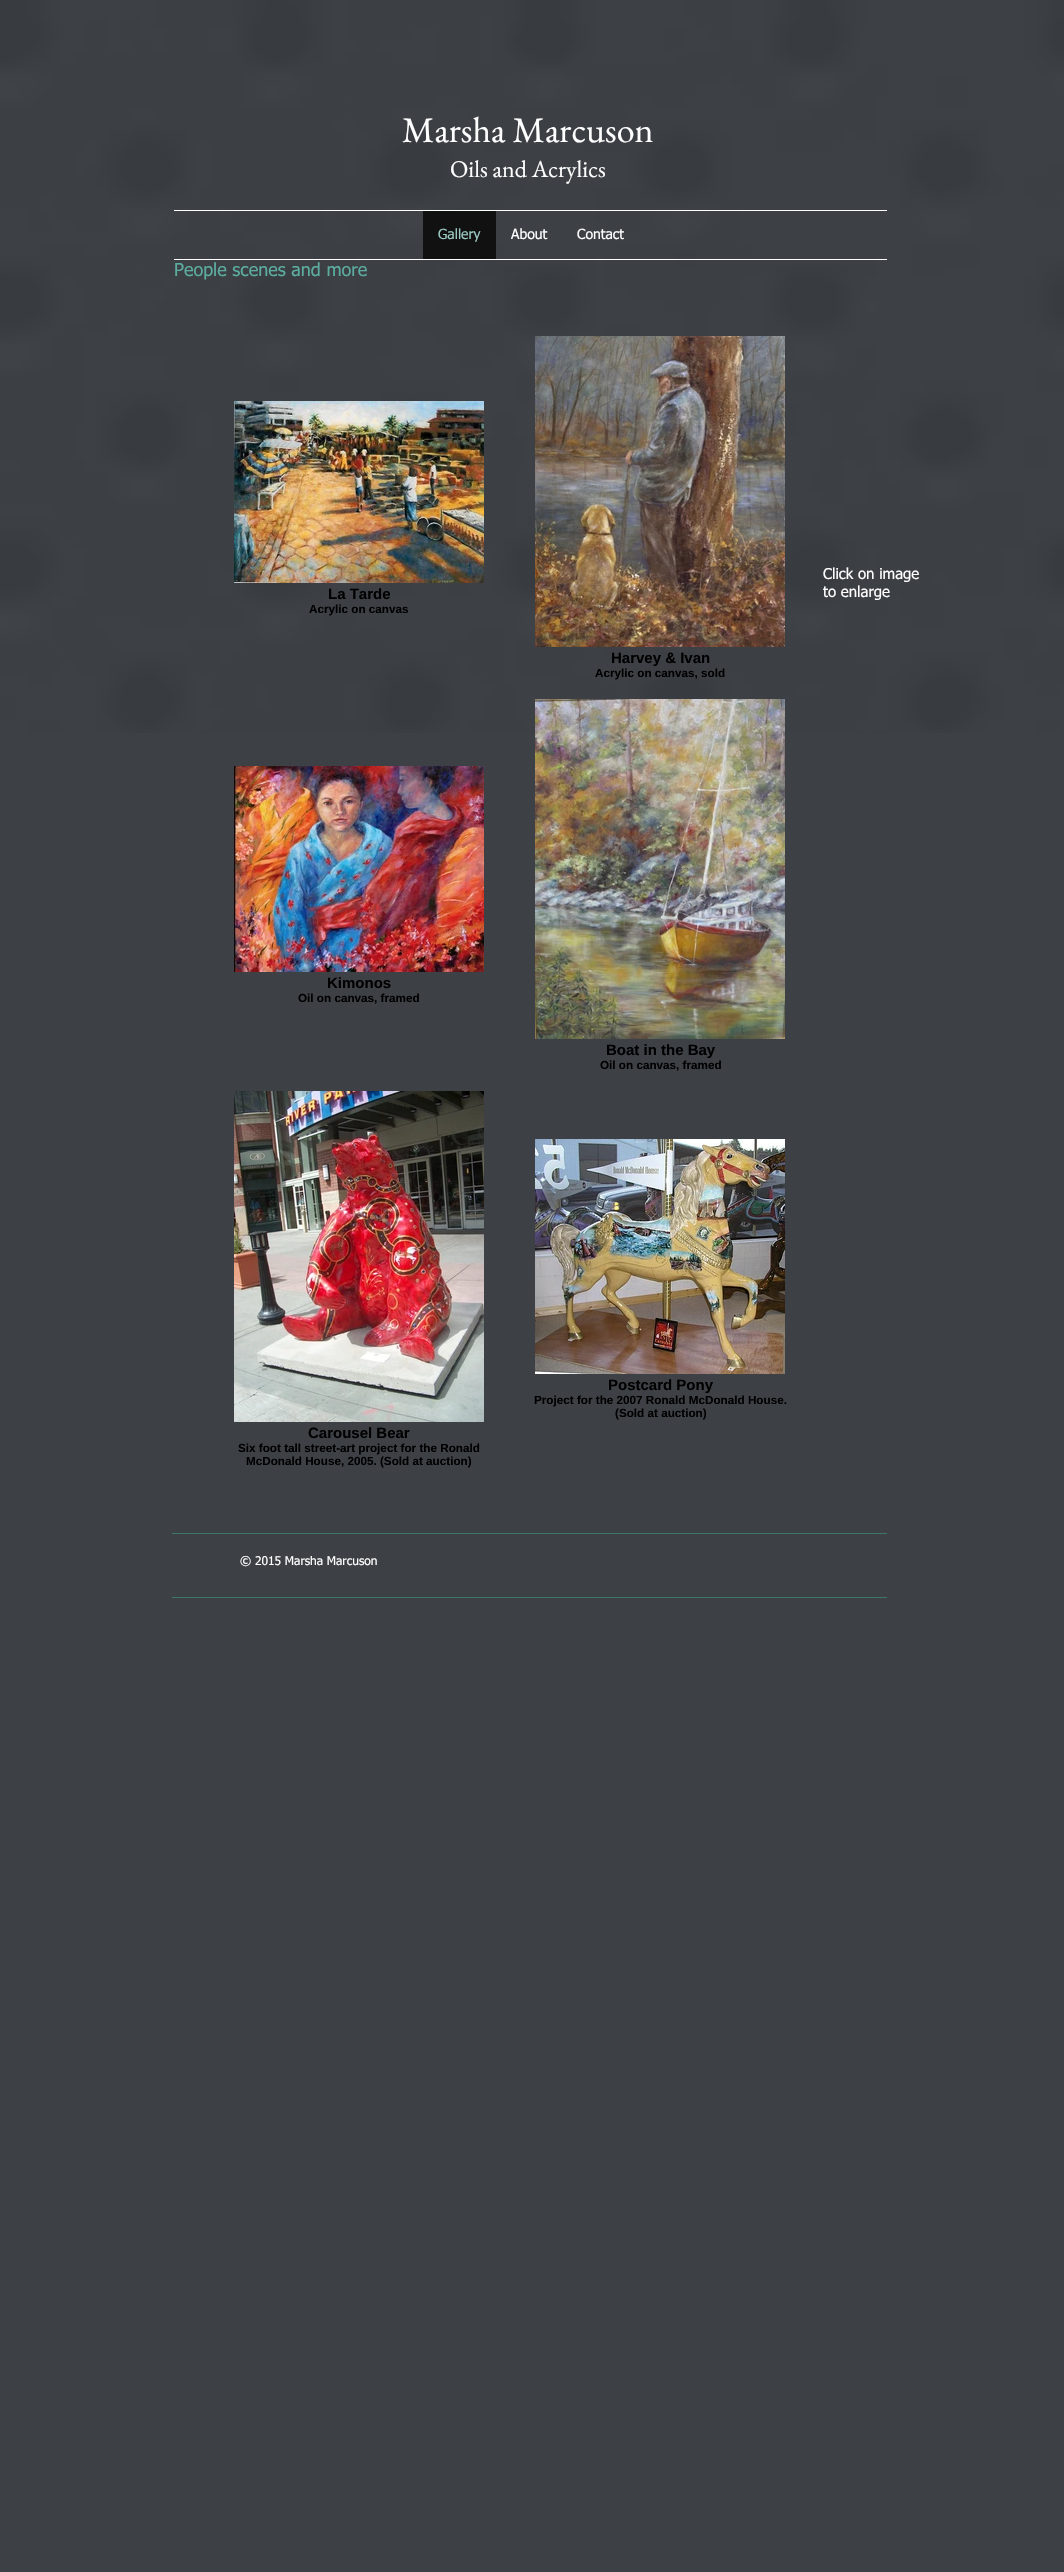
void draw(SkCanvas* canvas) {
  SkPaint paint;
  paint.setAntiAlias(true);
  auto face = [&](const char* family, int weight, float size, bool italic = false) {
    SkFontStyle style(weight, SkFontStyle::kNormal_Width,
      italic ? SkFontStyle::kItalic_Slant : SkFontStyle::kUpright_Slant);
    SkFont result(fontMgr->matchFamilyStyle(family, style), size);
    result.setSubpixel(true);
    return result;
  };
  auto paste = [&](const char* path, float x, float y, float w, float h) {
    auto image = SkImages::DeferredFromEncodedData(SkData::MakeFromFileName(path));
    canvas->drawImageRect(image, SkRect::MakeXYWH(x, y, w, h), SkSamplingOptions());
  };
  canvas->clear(0xff3d4146);
  paste("img/1.png", 0, 0, 1064, 733);
  {
    const struct { float x, y, w, h; SkColor color; } items[] = {
      {174, 210, 713, 1, 0xffffffff},
      {174, 259, 713, 1, 0xffffffff},
      {423, 211, 73, 48, 0xff111111},
    };
    for (auto [x, y, w, h, color] : items) {
      paint.setColor(color);
      canvas->drawRect(SkRect::MakeXYWH(x, y, w, h), paint);
    }
  }
  paste("img/2.png", 234, 401, 250, 182);
  paste("img/3.png", 535, 336, 250, 311);
  paste("img/4.png", 234, 766, 250, 206);
  paste("img/5.png", 535, 699, 250, 340);
  paste("img/6.png", 535, 1139, 250, 235);
  paste("img/7.png", 234, 1091, 250, 331);
  paint.setColor(0xff3d746b);
  canvas->drawRect(SkRect::MakeXYWH(172, 1533, 715, 1), paint);
  canvas->drawRect(SkRect::MakeXYWH(172, 1597, 715, 1), paint);
  auto f0 = face("EB Garamond", 400, 36);
  paint.setColor(0xffffffff);
  canvas->drawString("Marsha Marcuson", 402, 142, f0, paint);
  auto f1 = face("EB Garamond", 400, 24);
  canvas->drawString("Oils and Acrylics", 450, 177, f1, paint);
  auto f2 = face("tahoma", 400, 14);
  paint.setColor(0xff99c9c1);
  canvas->drawString("Gallery", 438, 239, f2, paint);
  paint.setColor(0xffffffff);
  canvas->drawString("About", 511, 239, f2, paint);
  canvas->drawString("Contact", 577, 239, f2, paint);
  auto f3 = face("tahoma", 400, 18);
  paint.setColor(0xff5cada0);
  canvas->drawString("People scenes and more", 174, 276, f3, paint);
  auto f4 = face("tahoma", 400, 15);
  paint.setColor(0xffffffff);
  canvas->drawString("Click on image", 823, 579, f4, paint);
  canvas->drawString("to enlarge", 823, 597, f4, paint);
  auto f5 = face("Liberation Sans", 700, 15);
  paint.setColor(0xff000000);
  canvas->drawString("La Tarde", 328, 599, f5, paint);
  auto f6 = face("Liberation Sans", 700, 11.7f);
  canvas->drawString("Acrylic on canvas", 309, 613, f6, paint);
  canvas->drawString("Harvey & Ivan", 611, 663, f5, paint);
  canvas->drawString("Acrylic on canvas, sold", 595, 677, f6, paint);
  canvas->drawString("Kimonos", 327, 988, f5, paint);
  canvas->drawString("Oil on canvas, framed", 298, 1002, f6, paint);
  canvas->drawString("Boat in the Bay", 606, 1055, f5, paint);
  canvas->drawString("Oil on canvas, framed", 600, 1069, f6, paint);
  canvas->drawString("Postcard Pony", 608, 1390, f5, paint);
  canvas->drawString("Project for the 2007 Ronald McDonald House.", 534, 1404, f6, paint);
  canvas->drawString("(Sold at auction)", 615, 1417, f6, paint);
  canvas->drawString("Carousel Bear", 308, 1438, f5, paint);
  canvas->drawString("Six foot tall street-art project for the Ronald", 238, 1452, f6, paint);
  canvas->drawString("McDonald House, 2005. (Sold at auction)", 246, 1465, f6, paint);
  auto f7 = face("tahoma", 400, 12);
  paint.setColor(0xffffffff);
  canvas->drawString("© 2015 Marsha Marcuson", 240, 1565, f7, paint);
}
